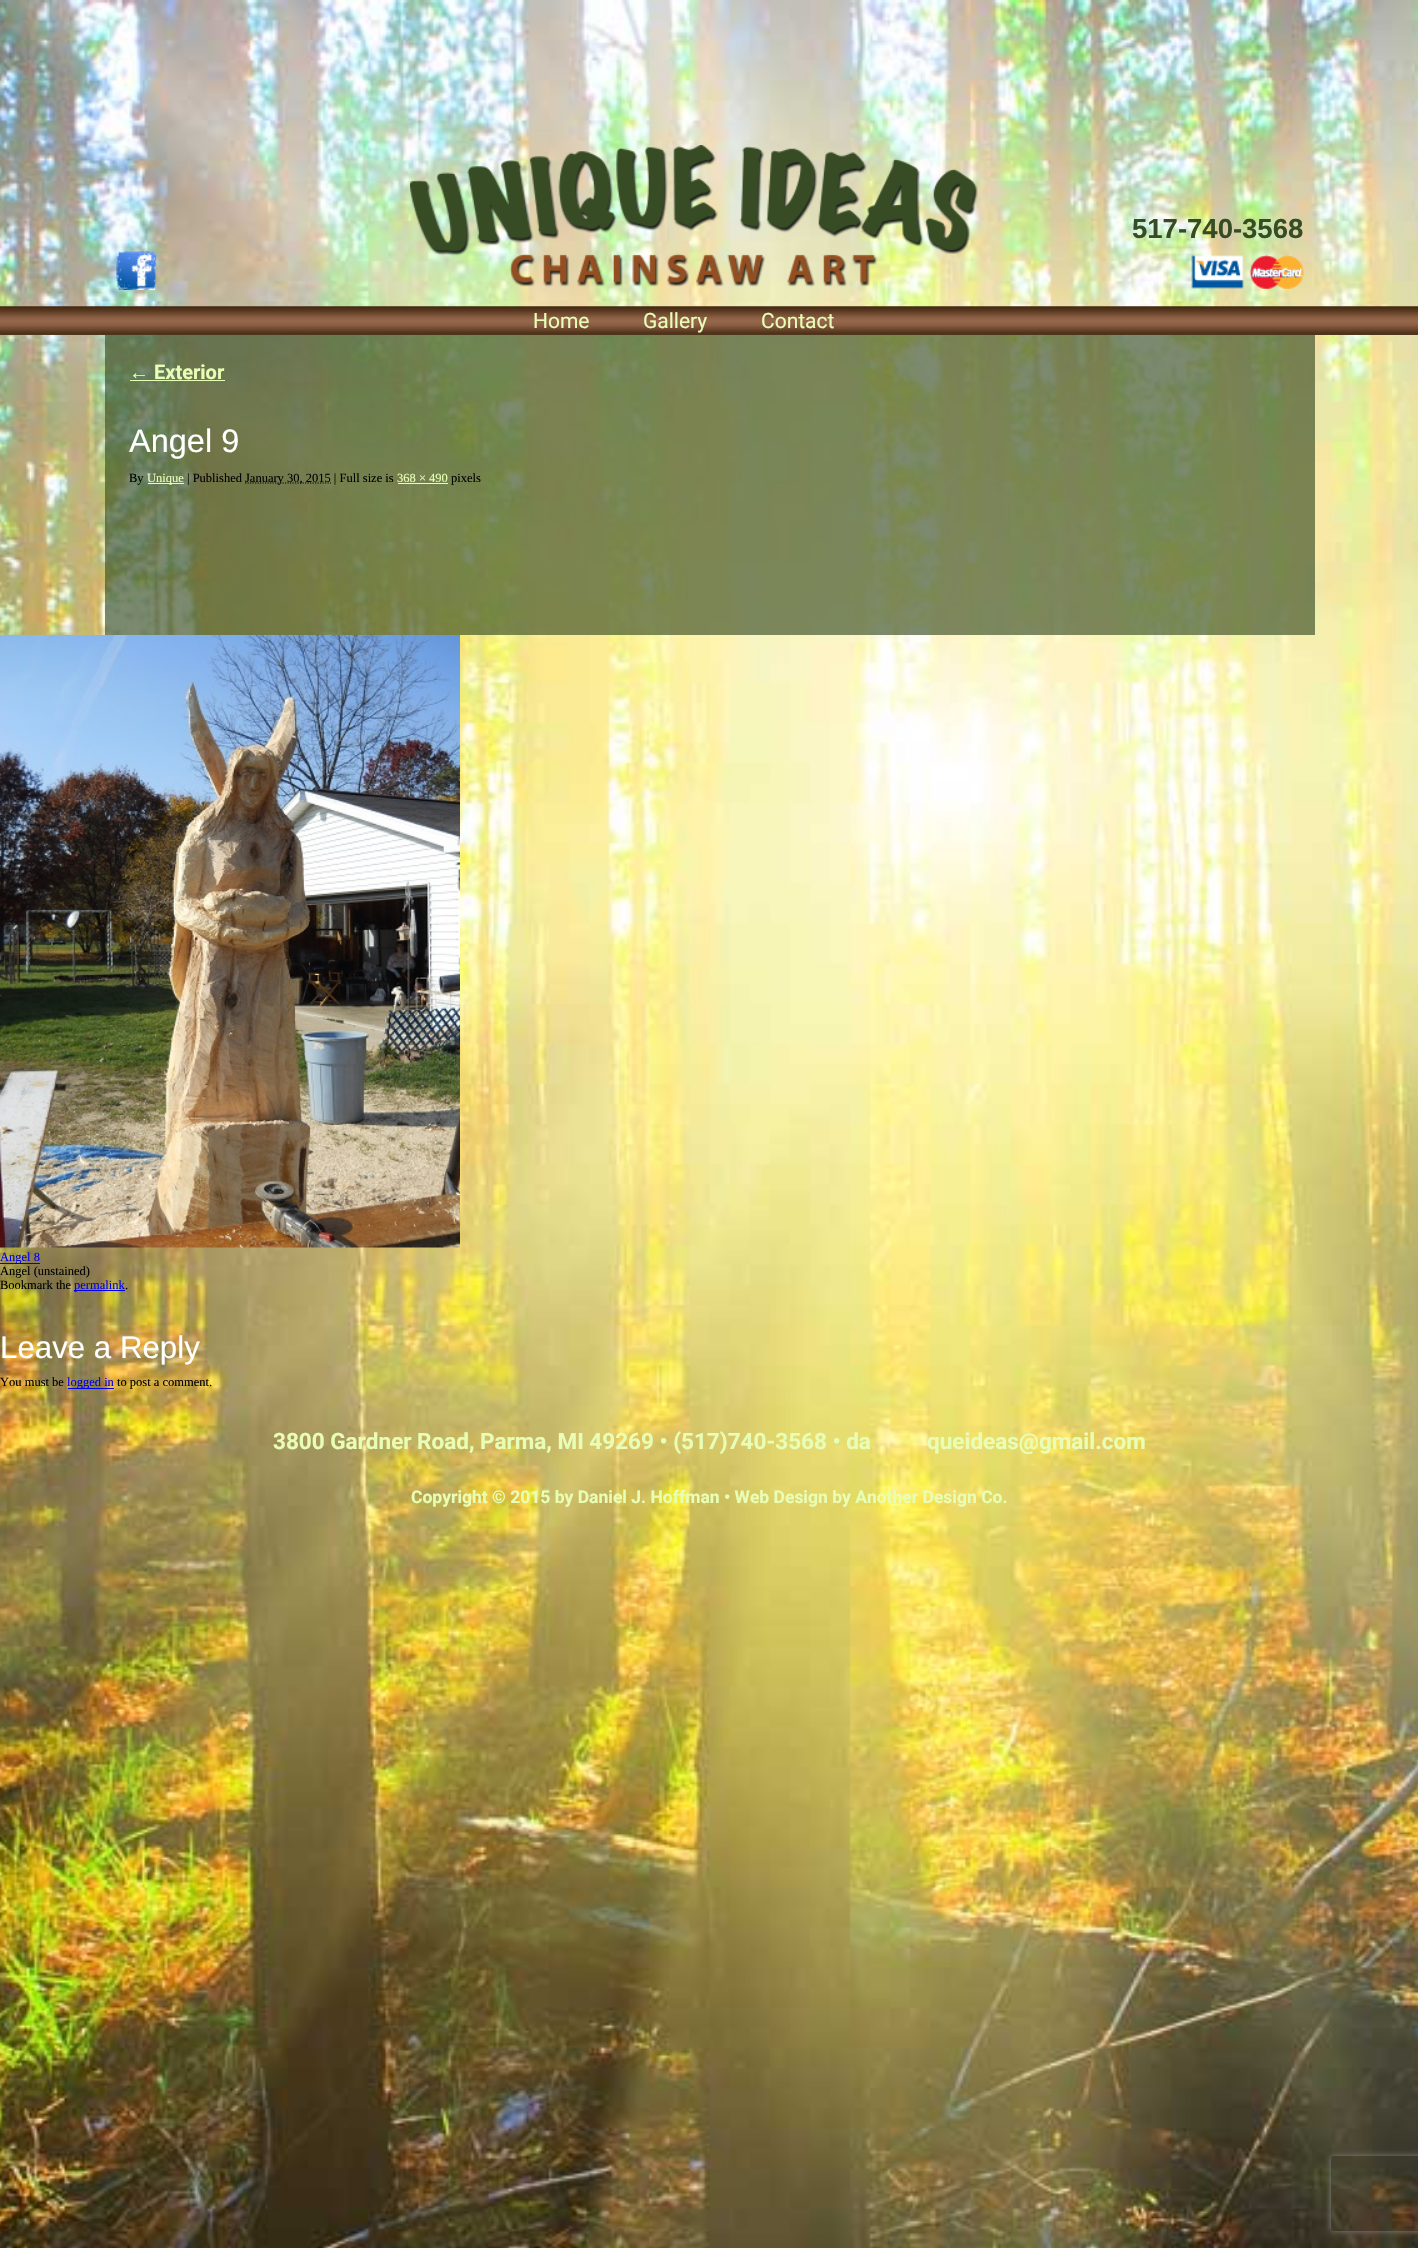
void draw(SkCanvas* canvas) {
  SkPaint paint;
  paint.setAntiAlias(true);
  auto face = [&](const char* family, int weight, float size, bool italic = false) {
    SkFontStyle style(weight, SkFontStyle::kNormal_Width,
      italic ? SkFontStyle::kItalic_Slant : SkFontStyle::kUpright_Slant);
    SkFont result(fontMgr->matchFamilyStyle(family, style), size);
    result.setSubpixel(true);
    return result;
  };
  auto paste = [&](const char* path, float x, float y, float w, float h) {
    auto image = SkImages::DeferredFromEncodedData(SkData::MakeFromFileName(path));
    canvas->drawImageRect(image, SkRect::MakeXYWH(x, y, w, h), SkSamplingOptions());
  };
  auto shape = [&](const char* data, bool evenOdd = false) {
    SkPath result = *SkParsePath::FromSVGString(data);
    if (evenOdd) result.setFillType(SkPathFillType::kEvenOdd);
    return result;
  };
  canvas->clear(0xffffffff);
  paste("img/1.png", 0, 0, 1418, 2248);
  paste("img/2.png", 410, 145, 568, 142);
  paste("img/3.png", 1191, 255, 113, 34);
  paste("img/4.png", 116, 251, 41, 39);
  paste("img/5.png", 0, 306, 1418, 29);
  {
    const struct { float x, y, w, h; SkColor color; } items[] = {
      {105, 335, 1210, 300, 0xa6374b23},
      {130, 380, 95, 1, 0xffe8feb6},
      {148, 483, 36, 1, 0xffe8feb6},
    };
    for (auto [x, y, w, h, color] : items) {
      paint.setColor(color);
      canvas->drawRect(SkRect::MakeXYWH(x, y, w, h), paint);
    }
  }
  paint.setStroke(true);
  paint.setStrokeWidth(1.2f);
  paint.setColor(0xff000000);
  paint.setPathEffect(SkDashPathEffect::Make({{1.25f, 1.25f}}, 0));
  canvas->drawPath(shape("M245 483H331"), paint);
  paint.setPathEffect(nullptr);
  paint.setStroke(false);
  paint.setColor(0xffe8feb6);
  canvas->drawRect(SkRect::MakeXYWH(398, 483, 50, 1), paint);
  paste("img/6.png", 0, 635, 460, 613);
  {
    const struct { float x, y, w, h; SkColor color; } items[] = {
      {0, 1263, 40, 1, 0xff0000ee},
      {74, 1290, 51, 1, 0xff0000ee},
      {68, 1388, 46, 1, 0xff0000ee},
    };
    for (auto [x, y, w, h, color] : items) {
      paint.setColor(color);
      canvas->drawRect(SkRect::MakeXYWH(x, y, w, h), paint);
    }
  }
  canvas->save();
  canvas->clipPath(shape("M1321 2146H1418V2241H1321ZM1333.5 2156H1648.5C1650 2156 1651 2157 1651 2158.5V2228.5C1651 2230 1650 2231 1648.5 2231H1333.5C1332 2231 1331 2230 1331 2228.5V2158.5C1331 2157 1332 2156 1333.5 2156Z", true), true);
  paint.setColor(0xff808080);
  paint.setMaskFilter(SkMaskFilter::MakeBlur(kNormal_SkBlurStyle, 3));
  canvas->drawRoundRect(SkRect::MakeXYWH(1331, 2156, 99, 75), 2.5f, 2.5f, paint);
  paint.setMaskFilter(nullptr);
  canvas->restore();
  auto f0 = face("Liberation Sans", 700, 27.5f);
  paint.setColor(0xff374c24);
  canvas->drawString("517-740-3568", 1132, 238, f0, paint);
  auto f1 = face("Roboto", 400, 21);
  paint.setColor(0xffe8feb6);
  {
    const struct { const char* s; float x, y; } items[] = {
      {"Home", 533, 328},
      {"Gallery", 643, 328},
      {"Contact", 761, 328},
    };
    for (auto [s, x, y] : items) {
      canvas->drawString(s, x, y, f1, paint);
    }
  }
  auto f2 = face("Liberation Sans", 700, 20);
  canvas->drawString("←", 129, 379, f2, paint);
  auto f3 = face("Roboto", 700, 20);
  canvas->drawString("Exterior", 154, 379, f3, paint);
  auto f4 = face("Liberation Sans", 400, 32.5f);
  paint.setColor(0xffffffff);
  canvas->drawString("Angel 9", 129, 452, f4, paint);
  auto f5 = face("Liberation Serif", 400, 12.5f);
  paint.setColor(0xff000000);
  canvas->drawString("By", 129, 482, f5, paint);
  paint.setColor(0xffe8feb6);
  canvas->drawString("Unique", 147, 482, f5, paint);
  paint.setColor(0xff000000);
  canvas->drawString("| Published", 187, 482, f5, paint);
  canvas->drawString("January 30, 2015 | Full size is", 245, 482, f5, paint);
  paint.setColor(0xffe8feb6);
  canvas->drawString("368 × 490", 397, 482, f5, paint);
  paint.setColor(0xff000000);
  canvas->drawString("pixels", 451, 482, f5, paint);
  paint.setColor(0xff0000ee);
  canvas->drawString("Angel 8", 0, 1261, f5, paint);
  paint.setColor(0xff000000);
  canvas->drawString("Angel (unstained)", 0, 1275, f5, paint);
  canvas->drawString("Bookmark the", 0, 1289, f5, paint);
  paint.setColor(0xff0000ee);
  canvas->drawString("permalink", 74, 1289, f5, paint);
  paint.setColor(0xff000000);
  canvas->drawString(".", 125, 1289, f5, paint);
  auto f6 = face("Liberation Sans", 400, 31.25f);
  paint.setColor(0xffffffff);
  canvas->drawString("Leave a Reply", 0, 1358, f6, paint);
  paint.setColor(0xff000000);
  canvas->drawString("You must be", 0, 1386, f5, paint);
  paint.setColor(0xff0000ee);
  canvas->drawString("logged in", 67, 1386, f5, paint);
  paint.setColor(0xff000000);
  canvas->drawString("to post a comment.", 117, 1386, f5, paint);
  auto f7 = face("Roboto", 700, 22.5f);
  paint.setColor(0xffe8feb6);
  canvas->drawString("3800 Gardner Road, Parma, MI 49269 • (517)740-3568 • da", 273, 1449, f7, paint);
  canvas->drawString("queideas@gmail.com", 927, 1449, f7, paint);
  auto f8 = face("Roboto", 700, 17.5f);
  canvas->drawString("Copyright © 2015 by Daniel J. Hoffman • Web Design by Another Design Co.", 411, 1503, f8, paint);
}
